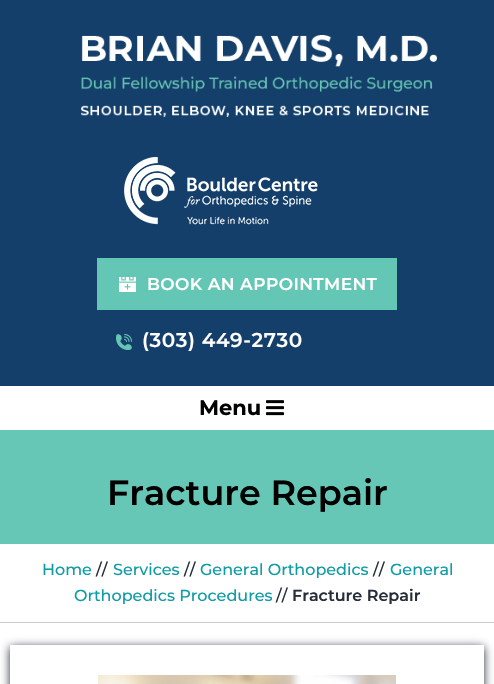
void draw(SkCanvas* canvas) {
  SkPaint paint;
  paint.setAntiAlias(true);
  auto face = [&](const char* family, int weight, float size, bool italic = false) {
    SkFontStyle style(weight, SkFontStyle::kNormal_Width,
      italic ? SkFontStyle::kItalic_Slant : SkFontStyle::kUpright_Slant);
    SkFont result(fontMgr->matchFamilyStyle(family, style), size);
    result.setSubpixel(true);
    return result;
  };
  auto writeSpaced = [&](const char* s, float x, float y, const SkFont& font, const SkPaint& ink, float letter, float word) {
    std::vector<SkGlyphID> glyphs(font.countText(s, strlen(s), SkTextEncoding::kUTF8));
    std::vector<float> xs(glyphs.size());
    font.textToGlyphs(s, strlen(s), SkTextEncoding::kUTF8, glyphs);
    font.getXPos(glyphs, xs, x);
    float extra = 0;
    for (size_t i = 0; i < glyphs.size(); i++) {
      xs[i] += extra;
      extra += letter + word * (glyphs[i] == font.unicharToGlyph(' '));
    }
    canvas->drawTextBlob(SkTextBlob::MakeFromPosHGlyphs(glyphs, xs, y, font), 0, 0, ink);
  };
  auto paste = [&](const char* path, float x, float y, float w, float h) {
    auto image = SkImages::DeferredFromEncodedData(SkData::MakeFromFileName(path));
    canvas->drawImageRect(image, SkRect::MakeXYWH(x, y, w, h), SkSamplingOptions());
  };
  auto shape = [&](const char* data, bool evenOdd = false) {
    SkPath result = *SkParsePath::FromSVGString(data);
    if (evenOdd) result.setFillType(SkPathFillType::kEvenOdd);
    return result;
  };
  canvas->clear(0xffffffff);
  paint.setColor(0xff143f6a);
  canvas->drawRect(SkRect::MakeXYWH(0, 0, 494, 386), paint);
  paste("img/1.png", 81, 35, 356, 82);
  paste("img/2.png", 124, 157, 194, 68);
  paint.setColor(0xff64c7b5);
  canvas->drawRect(SkRect::MakeXYWH(97, 258, 300, 52), paint);
  paste("img/3.png", 119, 277, 17, 15);
  paste("img/4.png", 116, 334, 16, 16);
  paste("img/5.png", 266, 400, 18, 16);
  paint.setColor(0xff66c7b6);
  canvas->drawRect(SkRect::MakeXYWH(0, 430, 494, 114), paint);
  paint.setColor(0xffcccccc);
  canvas->drawRect(SkRect::MakeXYWH(0, 622, 494, 1), paint);
  canvas->save();
  canvas->clipPath(shape("M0 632H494V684H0ZM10 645H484V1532H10Z", true), true);
  paint.setColor(0xff262e39);
  paint.setMaskFilter(SkMaskFilter::MakeBlur(kNormal_SkBlurStyle, 4.5f));
  canvas->drawRect(SkRect::MakeXYWH(10, 647, 474, 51), paint);
  paint.setMaskFilter(nullptr);
  canvas->restore();
  paste("img/6.png", 98, 675, 298, 9);
  auto f0 = face("Montserrat", 600, 17);
  paint.setColor(0xffffffff);
  writeSpaced("BOOK AN APPOINTMENT", 147, 290, f0, paint, 0.4f, 0);
  auto f1 = face("Montserrat", 600, 20);
  writeSpaced("(303) 449-2730", 142, 347, f1, paint, 0.6f, 0);
  auto f2 = face("Montserrat", 700, 21);
  paint.setColor(0xff000000);
  canvas->drawString("Menu", 199, 415, f2, paint);
  auto f3 = face("Montserrat", 600, 35);
  canvas->drawString("Fracture Repair", 107, 505, f3, paint);
  auto f4 = face("Montserrat", 500, 16);
  paint.setColor(0xff109ca6);
  canvas->drawString("Home", 42, 575, f4, paint);
  paint.setColor(0xff262e39);
  canvas->drawString("//", 96, 575, f4, paint);
  paint.setColor(0xff109ca6);
  canvas->drawString("Services", 113, 575, f4, paint);
  paint.setColor(0xff262e39);
  canvas->drawString("//", 184, 575, f4, paint);
  paint.setColor(0xff109ca6);
  canvas->drawString("General Orthopedics", 200, 575, f4, paint);
  paint.setColor(0xff262e39);
  canvas->drawString("//", 373, 575, f4, paint);
  paint.setColor(0xff109ca6);
  canvas->drawString("General", 390, 575, f4, paint);
  canvas->drawString("Orthopedics Procedures", 74, 601, f4, paint);
  paint.setColor(0xff262e39);
  canvas->drawString("//", 276, 601, f4, paint);
  auto f5 = face("Montserrat", 600, 16);
  canvas->drawString("Fracture Repair", 292, 601, f5, paint);
}
